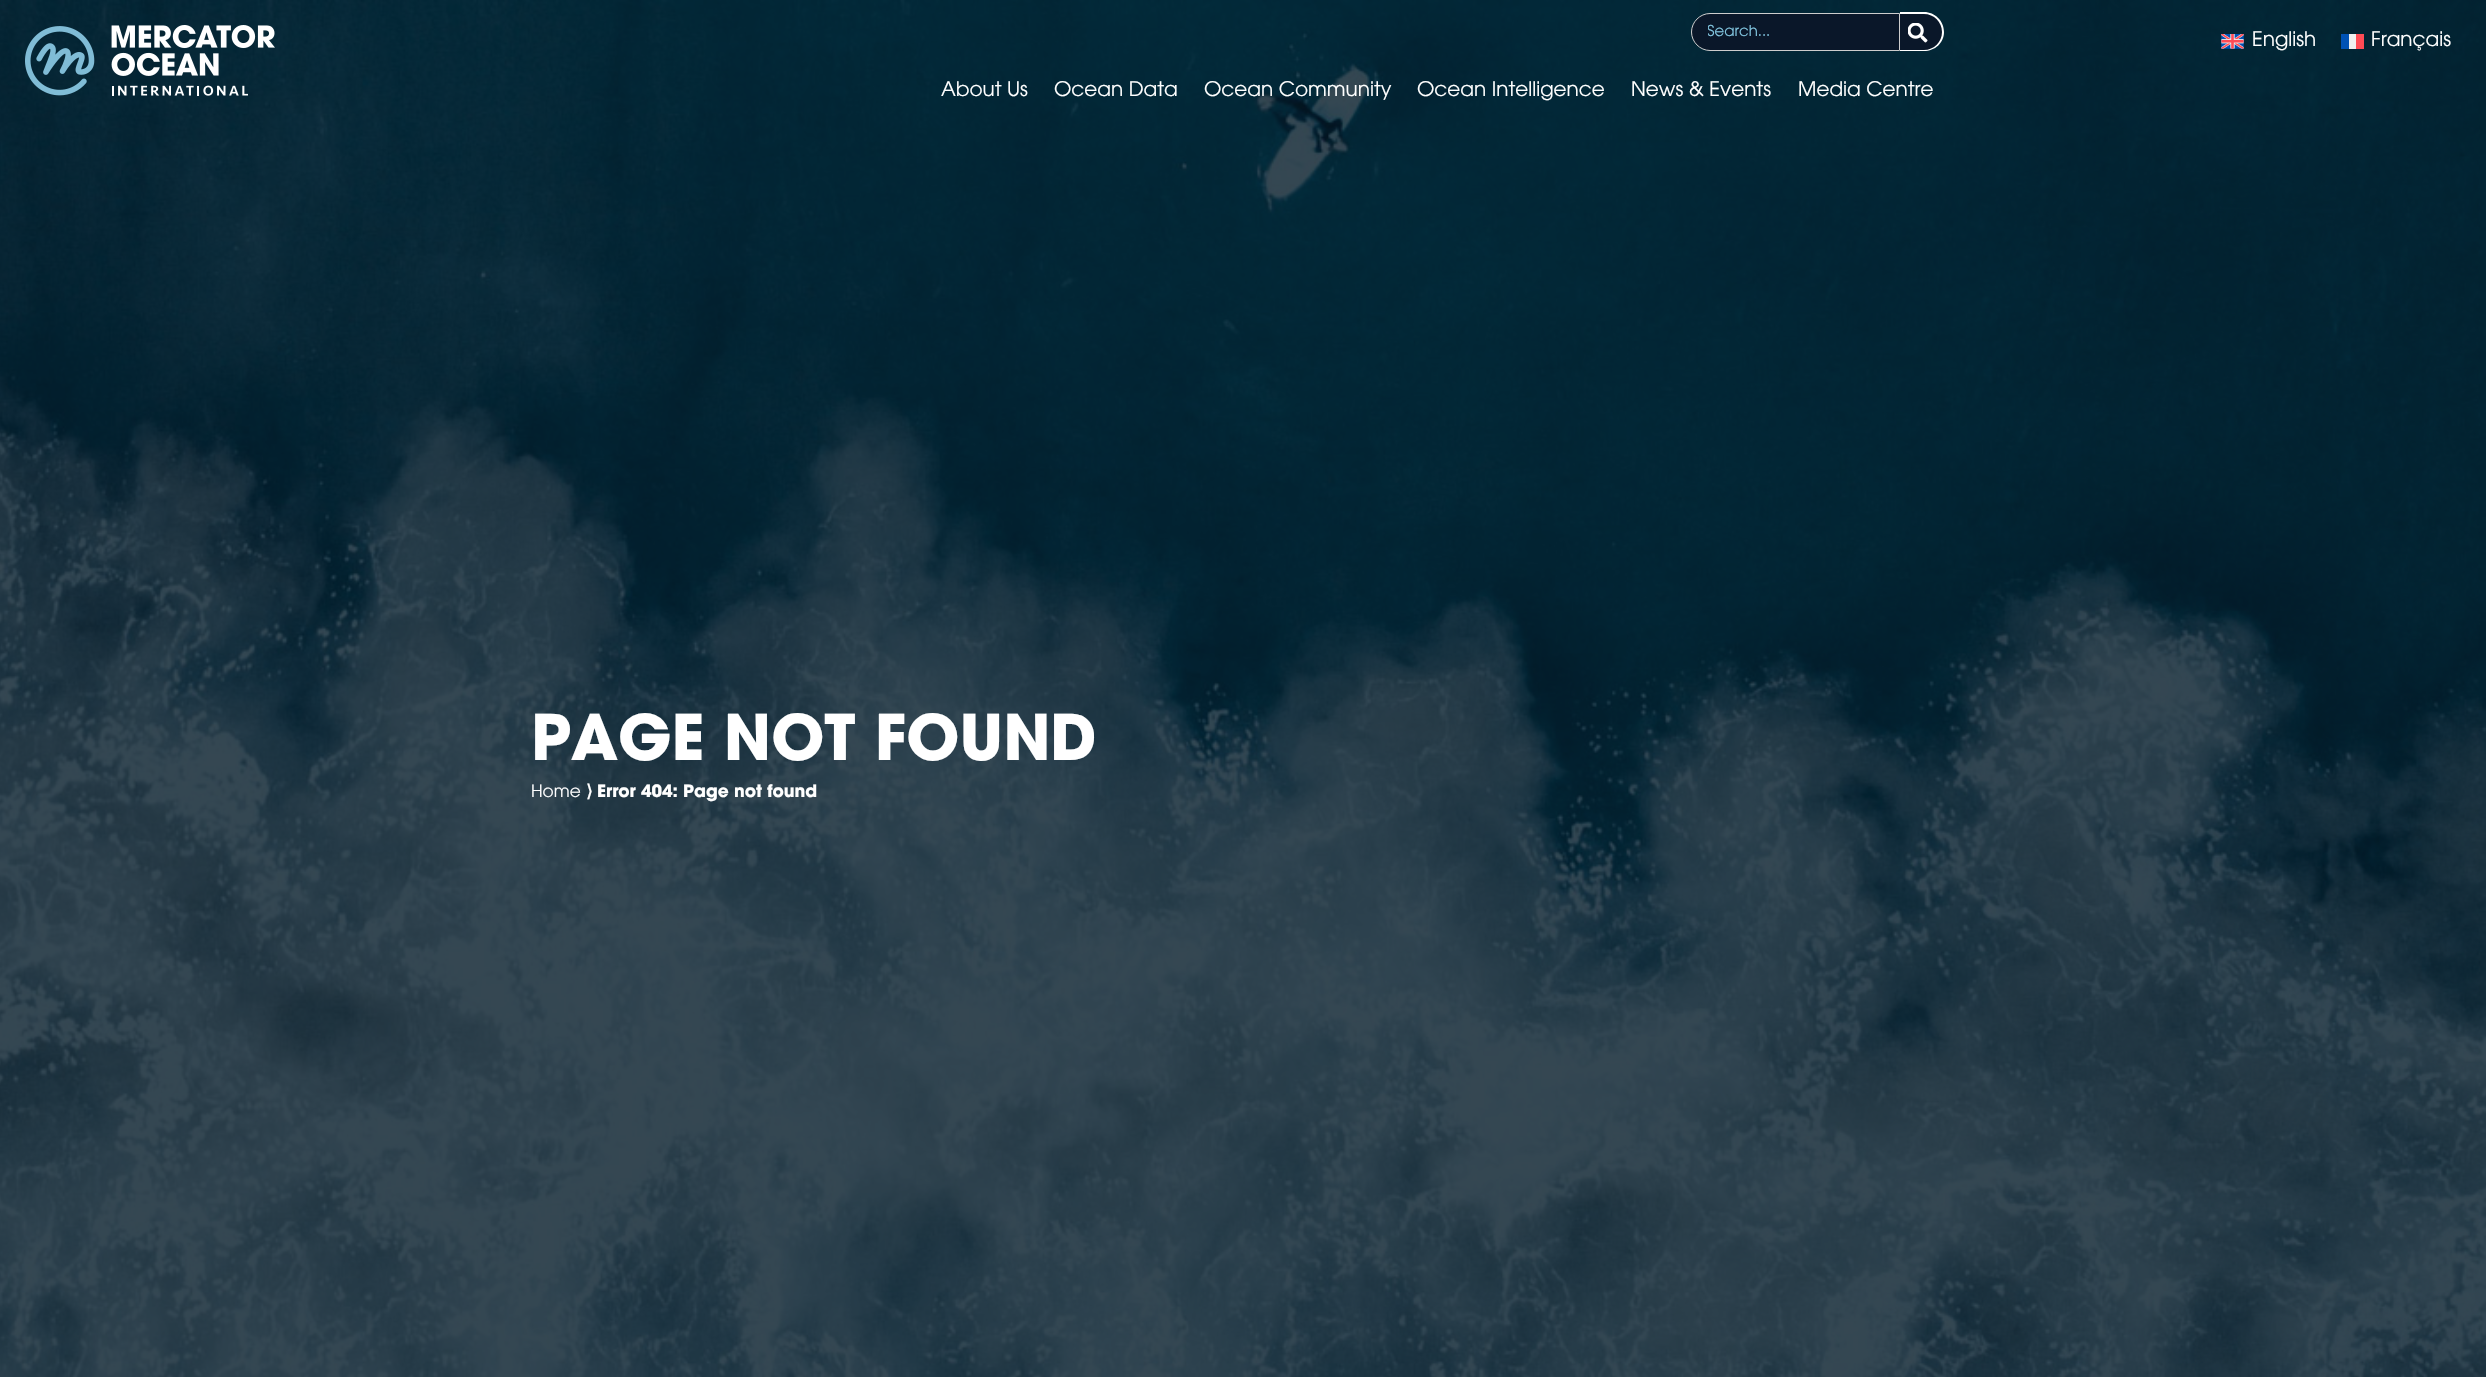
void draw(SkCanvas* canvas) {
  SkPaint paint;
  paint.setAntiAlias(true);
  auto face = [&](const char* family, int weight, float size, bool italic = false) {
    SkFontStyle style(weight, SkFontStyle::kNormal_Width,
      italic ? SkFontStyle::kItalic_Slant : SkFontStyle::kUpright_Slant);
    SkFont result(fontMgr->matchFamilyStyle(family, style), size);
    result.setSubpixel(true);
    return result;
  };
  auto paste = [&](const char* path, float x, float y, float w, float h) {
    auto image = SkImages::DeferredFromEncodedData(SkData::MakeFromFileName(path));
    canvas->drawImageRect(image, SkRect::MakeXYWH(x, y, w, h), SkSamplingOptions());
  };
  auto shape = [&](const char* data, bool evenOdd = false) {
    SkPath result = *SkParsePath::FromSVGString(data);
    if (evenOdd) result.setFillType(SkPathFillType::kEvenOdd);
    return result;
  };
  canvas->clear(0xffffffff);
  paste("img/4.png", 0, 0, 2486, 1377);
  paste("img/1.png", 25, 25, 250, 71);
  paint.setColor(0xff0a1729);
  canvas->drawPath(shape("M1710 13.5H1899.5V50.5H1710C1700 50.5 1691.5 42 1691.5 32C1691.5 22 1700 13.5 1710 13.5Z"), paint);
  paint.setStroke(true);
  paint.setStrokeWidth(1);
  paint.setColor(0xffcdcdcd);
  canvas->drawPath(shape("M1710 13.5H1899.5V50.5H1710C1700 50.5 1691.5 42 1691.5 32C1691.5 22 1700 13.5 1710 13.5Z"), paint);
  paint.setStroke(false);
  paint.setColor(0xff0a1729);
  canvas->drawPath(shape("M1900 14H1925C1935 14 1943 22 1943 32C1943 42 1935 50 1925 50H1900Z"), paint);
  paint.setColor(0xffffffff);
  canvas->drawPath(shape("M1900 12H1924C1935 12 1944 21 1944 32C1944 43 1935 51 1924 51H1900ZM1900 14H1924C1934 14 1942 22 1942 32C1942 42 1934 50 1924 50H1900Z", true), paint);
  paste("img/2.png", 1908, 23, 20, 20);
  paste("img/3.png", 2221, 34, 23, 15);
  {
    const struct { float x, y, w, h; SkColor color; } items[] = {
      {2341, 34, 8, 15, 0xff0052b4},
      {2349, 34, 7, 15, 0xfff0f0f0},
      {2356, 34, 8, 15, 0xffff4b55},
    };
    for (auto [x, y, w, h, color] : items) {
      paint.setColor(color);
      canvas->drawRect(SkRect::MakeXYWH(x, y, w, h), paint);
    }
  }
  canvas->save();
  canvas->clipRect(SkRect::MakeXYWH(1708, 24, 161, 17));
  auto f0 = face("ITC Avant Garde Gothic", 400, 15);
  paint.setColor(0xff81c5df);
  canvas->drawString("Search...", 1707, 36, f0, paint);
  canvas->restore();
  auto f1 = face("ITC Avant Garde Gothic", 400, 20);
  paint.setColor(0xffffffff);
  {
    const struct { const char* s; float x, y; } items[] = {
      {"About Us", 941, 96},
      {"Ocean Data", 1054, 96},
      {"Ocean Community", 1204, 96},
      {"Ocean Intelligence", 1417, 96},
      {"News & Events", 1631, 96},
      {"Media Centre", 1798, 96},
      {"English", 2252, 46},
      {"Français", 2371, 46},
    };
    for (auto [s, x, y] : items) {
      canvas->drawString(s, x, y, f1, paint);
    }
  }
  auto f2 = face("ITC Avant Garde Gothic", 700, 62.5f);
  canvas->drawString("PAGE NOT FOUND", 531, 760, f2, paint);
  auto f3 = face("ITC Avant Garde Gothic", 400, 17);
  canvas->drawString("Home", 531, 797, f3, paint);
  auto f4 = face("DejaVu Sans", 700, 17);
  canvas->drawString("⟩", 586, 797, f4, paint);
  auto f5 = face("ITC Avant Garde Gothic", 700, 17);
  canvas->drawString("Error 404: Page not found", 597, 797, f5, paint);
}
